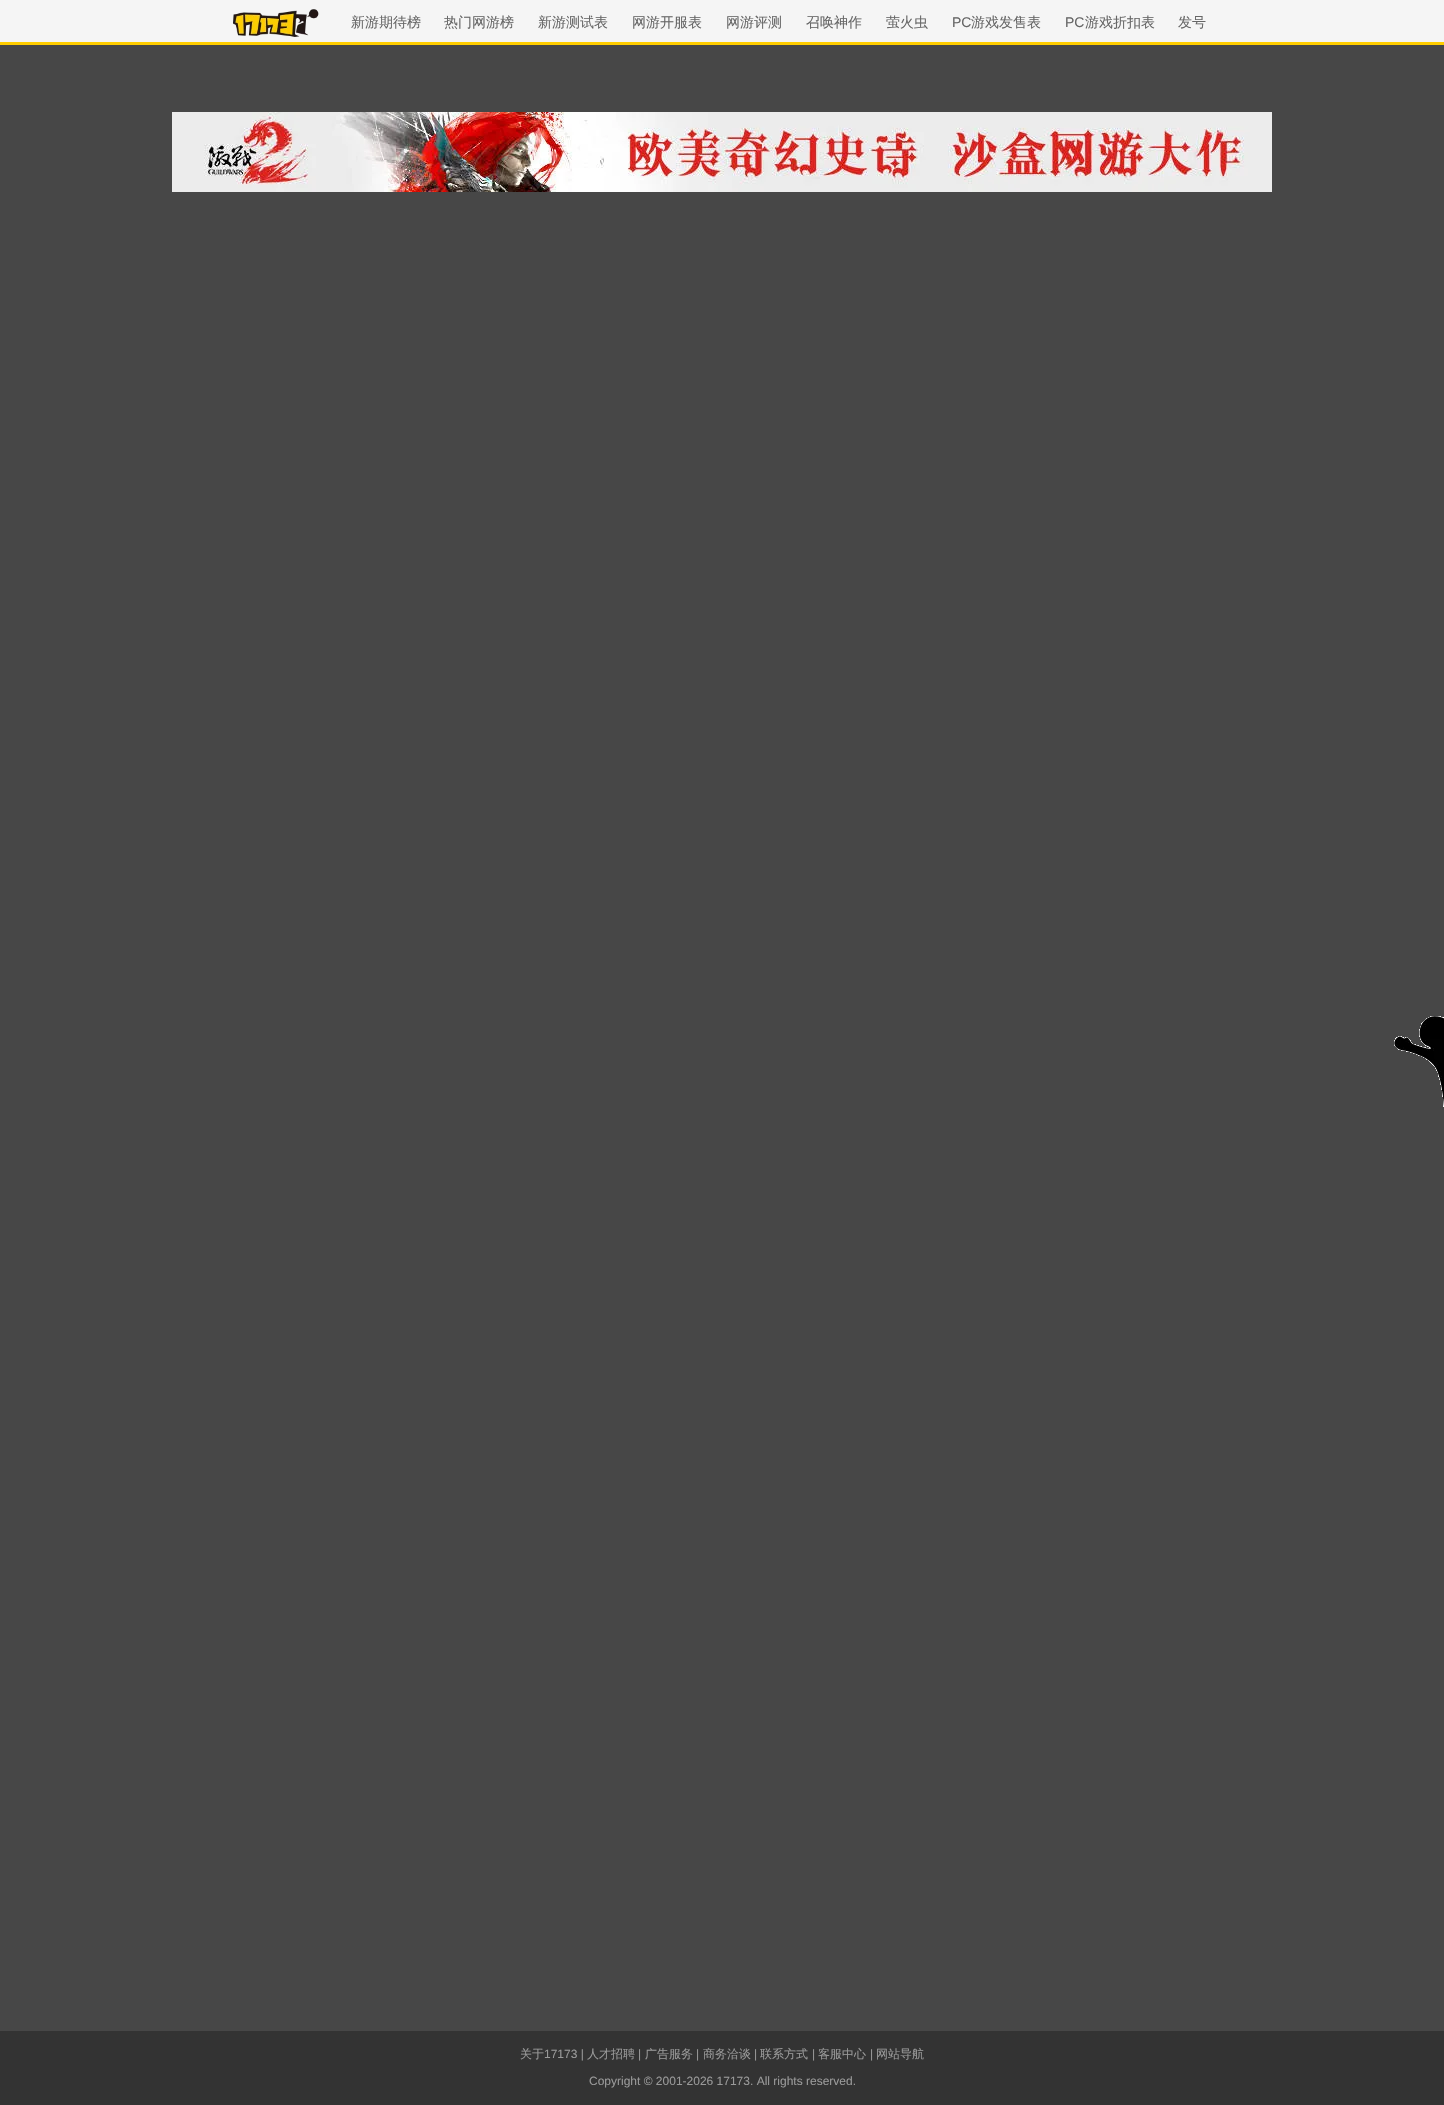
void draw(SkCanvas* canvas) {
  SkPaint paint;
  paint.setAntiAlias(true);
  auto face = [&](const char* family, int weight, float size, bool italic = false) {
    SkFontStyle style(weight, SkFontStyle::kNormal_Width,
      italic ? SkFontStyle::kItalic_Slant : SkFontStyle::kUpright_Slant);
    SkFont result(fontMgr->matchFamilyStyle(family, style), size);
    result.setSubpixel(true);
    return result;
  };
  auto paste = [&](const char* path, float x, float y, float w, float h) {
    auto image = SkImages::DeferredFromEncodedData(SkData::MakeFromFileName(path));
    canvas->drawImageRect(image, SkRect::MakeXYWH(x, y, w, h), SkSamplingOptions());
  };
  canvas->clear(0xff474747);
  paint.setColor(0xfff5f5f5);
  canvas->drawRect(SkRect::MakeXYWH(0, 0, 1444, 42), paint);
  paint.setColor(0xffffcd00);
  canvas->drawRect(SkRect::MakeXYWH(0, 42, 1444, 3), paint);
  paste("img/1.png", 233, 9, 86, 28);
  paste("img/2.png", 172, 112, 1100, 80);
  paste("img/3.png", 1394, 1016, 50, 91);
  paint.setColor(0xff333333);
  canvas->drawRect(SkRect::MakeXYWH(0, 2031, 1444, 74), paint);
  auto f0 = face("WenQuanYi Zen Hei", 500, 14);
  paint.setColor(0xff666666);
  {
    const struct { const char* s; float x, y; } items[] = {
      {"新游期待榜", 351, 27},
      {"热门网游榜", 444, 27},
      {"新游测试表", 538, 27},
      {"网游开服表", 632, 27},
      {"网游评测", 726, 27},
      {"召唤神作", 806, 27},
      {"萤火虫", 886, 27},
    };
    for (auto [s, x, y] : items) {
      canvas->drawString(s, x, y, f0, paint);
    }
  }
  auto f1 = face("Liberation Sans", 400, 14);
  canvas->drawString("PC", 952, 27, f1, paint);
  canvas->drawString("游戏发售表", 971, 27, f0, paint);
  canvas->drawString("PC", 1065, 27, f1, paint);
  canvas->drawString("游戏折扣表", 1085, 27, f0, paint);
  canvas->drawString("发号", 1178, 27, f0, paint);
  auto f2 = face("WenQuanYi Zen Hei", 500, 12);
  paint.setColor(0xff999999);
  canvas->drawString("关于", 520, 2058, f2, paint);
  auto f3 = face("Liberation Sans", 400, 12);
  canvas->drawString("17173 |", 544, 2058, f3, paint);
  canvas->drawString("人才招聘", 587, 2058, f2, paint);
  canvas->drawString("|", 638, 2058, f3, paint);
  canvas->drawString("广告服务", 645, 2058, f2, paint);
  canvas->drawString("|", 696, 2058, f3, paint);
  canvas->drawString("商务洽谈", 703, 2058, f2, paint);
  canvas->drawString("|", 754, 2058, f3, paint);
  canvas->drawString("联系方式", 760, 2058, f2, paint);
  canvas->drawString("|", 812, 2058, f3, paint);
  canvas->drawString("客服中心", 818, 2058, f2, paint);
  canvas->drawString("|", 870, 2058, f3, paint);
  canvas->drawString("网站导航", 876, 2058, f2, paint);
  canvas->drawString("Copyright © 2001-2026 17173. All rights reserved.", 589, 2085, f3, paint);
}
